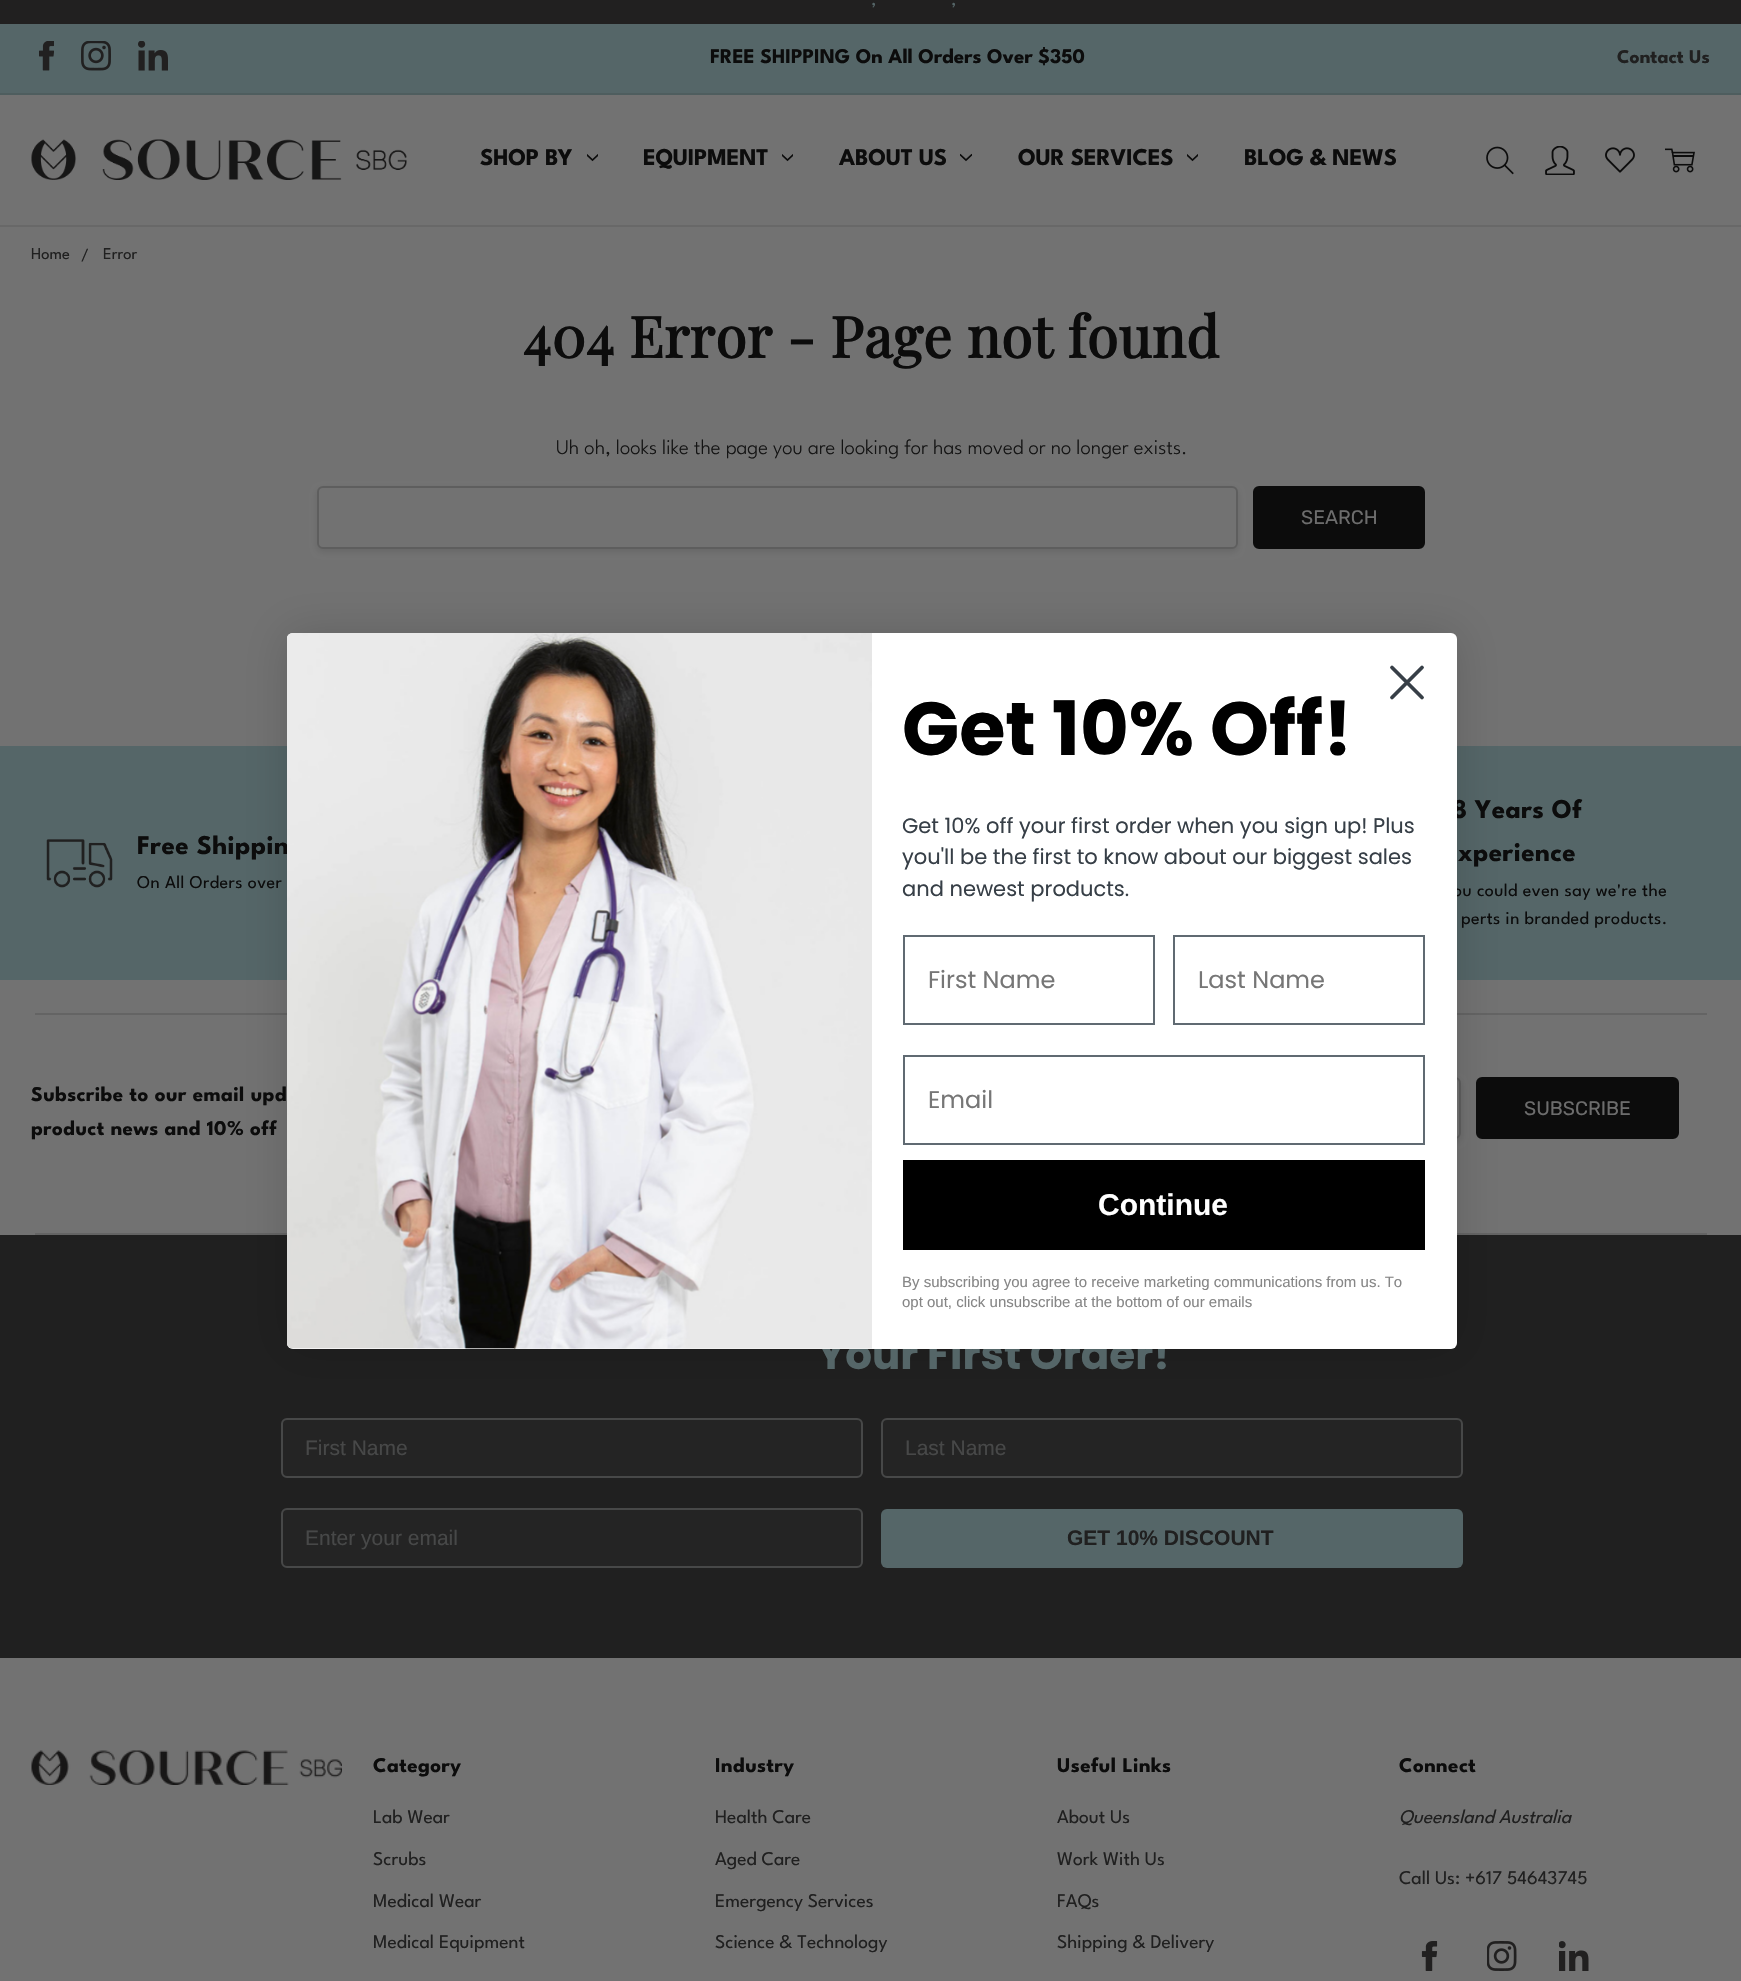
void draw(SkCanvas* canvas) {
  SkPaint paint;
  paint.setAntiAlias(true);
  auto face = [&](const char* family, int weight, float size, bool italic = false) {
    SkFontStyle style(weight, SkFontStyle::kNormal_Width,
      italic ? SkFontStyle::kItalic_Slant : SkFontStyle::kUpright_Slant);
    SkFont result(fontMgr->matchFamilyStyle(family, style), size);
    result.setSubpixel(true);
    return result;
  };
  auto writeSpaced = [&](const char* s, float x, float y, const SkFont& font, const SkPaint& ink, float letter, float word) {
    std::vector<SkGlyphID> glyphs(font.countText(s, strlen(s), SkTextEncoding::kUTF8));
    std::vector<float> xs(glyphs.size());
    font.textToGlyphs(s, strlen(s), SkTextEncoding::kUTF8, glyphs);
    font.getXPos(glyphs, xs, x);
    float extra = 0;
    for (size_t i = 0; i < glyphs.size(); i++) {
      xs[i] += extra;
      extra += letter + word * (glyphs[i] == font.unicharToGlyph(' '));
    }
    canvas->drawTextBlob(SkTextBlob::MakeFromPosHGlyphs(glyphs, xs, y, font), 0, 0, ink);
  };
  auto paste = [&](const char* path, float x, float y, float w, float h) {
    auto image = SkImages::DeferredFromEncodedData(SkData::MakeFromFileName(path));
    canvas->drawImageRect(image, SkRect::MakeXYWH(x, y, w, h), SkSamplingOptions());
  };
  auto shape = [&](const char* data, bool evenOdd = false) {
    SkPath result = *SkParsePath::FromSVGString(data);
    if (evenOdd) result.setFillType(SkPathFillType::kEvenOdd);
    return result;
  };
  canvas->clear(0xff727272);
  {
    const struct { float x, y, w, h; SkColor color; } items[] = {
      {0, 0, 1741, 24, 0xff212020},
      {0, 225, 1741, 2, 0xff686868},
      {0, 24, 1741, 69, 0xff556668},
      {0, 93, 1741, 2, 0xff4e5d5e},
    };
    for (auto [x, y, w, h, color] : items) {
      paint.setColor(color);
      canvas->drawRect(SkRect::MakeXYWH(x, y, w, h), paint);
    }
  }
  paste("img/1.png", 39, 41, 15, 30);
  paste("img/2.png", 81, 41, 30, 30);
  paste("img/3.png", 138, 41, 30, 30);
  paste("img/4.png", 31, 139, 376, 41);
  paste("img/5.png", 587, 154, 11, 8);
  paste("img/5.png", 782, 154, 11, 8);
  paste("img/6.png", 960, 153, 12, 9);
  paste("img/5.png", 1187, 154, 11, 8);
  paste("img/7.png", 1486, 146, 28, 29);
  paste("img/8.png", 1545, 146, 30, 29);
  paste("img/9.png", 1605, 147, 30, 26);
  paste("img/10.png", 1665, 148, 30, 25);
  paint.setColor(0x1a0c0c0c);
  paint.setMaskFilter(SkMaskFilter::MakeBlur(kNormal_SkBlurStyle, 3));
  canvas->drawRoundRect(SkRect::MakeXYWH(317, 489, 921, 63), 6, 6, paint);
  paint.setMaskFilter(nullptr);
  paint.setColor(0xff727272);
  canvas->drawRoundRect(SkRect::MakeXYWH(318, 487, 919, 61), 5, 5, paint);
  paint.setStroke(true);
  paint.setStrokeWidth(2);
  paint.setColor(0xff5e5e5e);
  canvas->drawRoundRect(SkRect::MakeXYWH(318, 487, 919, 61), 5, 5, paint);
  paint.setStroke(false);
  paint.setColor(0xff0c0c0c);
  canvas->drawRoundRect(SkRect::MakeXYWH(1254, 487, 170, 61), 5, 5, paint);
  paint.setStroke(true);
  canvas->drawRoundRect(SkRect::MakeXYWH(1254, 487, 170, 61), 5, 5, paint);
  paint.setStroke(false);
  {
    const struct { float x, y, w, h; SkColor color; } items[] = {
      {0, 746, 1741, 234, 0xff556668},
      {35, 1013, 1672, 2, 0xff646464},
      {35, 1233, 1672, 2, 0xff646464},
    };
    for (auto [x, y, w, h, color] : items) {
      paint.setColor(color);
      canvas->drawRect(SkRect::MakeXYWH(x, y, w, h), paint);
    }
  }
  paint.setColor(0x1a0c0c0c);
  paint.setMaskFilter(SkMaskFilter::MakeBlur(kNormal_SkBlurStyle, 3));
  canvas->drawRoundRect(SkRect::MakeXYWH(870, 1080, 591, 62), 6, 6, paint);
  paint.setMaskFilter(nullptr);
  paint.setColor(0xff727272);
  canvas->drawRoundRect(SkRect::MakeXYWH(871, 1078, 589, 60), 5, 5, paint);
  paint.setStroke(true);
  paint.setColor(0xff5e5e5e);
  canvas->drawRoundRect(SkRect::MakeXYWH(871, 1078, 589, 60), 5, 5, paint);
  paint.setStroke(false);
  paint.setColor(0xff0c0c0c);
  canvas->drawRoundRect(SkRect::MakeXYWH(1477, 1078, 201, 60), 5, 5, paint);
  paint.setStroke(true);
  canvas->drawRoundRect(SkRect::MakeXYWH(1477, 1078, 201, 60), 5, 5, paint);
  paint.setStroke(false);
  paint.setColor(0xff202020);
  canvas->drawRect(SkRect::MakeXYWH(0, 1235, 1741, 423), paint);
  paint.setColor(0x26000000);
  paint.setMaskFilter(SkMaskFilter::MakeBlur(kNormal_SkBlurStyle, 22.5f));
  canvas->drawRoundRect(SkRect::MakeXYWH(287, 633, 1170, 716), 6, 6, paint);
  paint.setMaskFilter(nullptr);
  paste("img/12.png", 46, 839, 67, 49);
  paint.setColor(0xff242424);
  canvas->drawRoundRect(SkRect::MakeXYWH(282, 1419, 580, 58), 5, 5, paint);
  paint.setStroke(true);
  paint.setColor(0xff474848);
  canvas->drawRoundRect(SkRect::MakeXYWH(282, 1419, 580, 58), 5, 5, paint);
  paint.setStroke(false);
  paint.setColor(0xff242424);
  canvas->drawRoundRect(SkRect::MakeXYWH(882, 1419, 580, 58), 5, 5, paint);
  paint.setStroke(true);
  paint.setColor(0xff474848);
  canvas->drawRoundRect(SkRect::MakeXYWH(882, 1419, 580, 58), 5, 5, paint);
  paint.setStroke(false);
  paint.setColor(0xff242424);
  canvas->drawRoundRect(SkRect::MakeXYWH(282, 1509, 580, 58), 5, 5, paint);
  paint.setStroke(true);
  paint.setColor(0xff474848);
  canvas->drawRoundRect(SkRect::MakeXYWH(282, 1509, 580, 58), 5, 5, paint);
  paint.setStroke(false);
  paint.setColor(0xff556668);
  canvas->drawRoundRect(SkRect::MakeXYWH(881, 1509, 582, 59), 6, 6, paint);
  paste("img/13.png", 31, 1750, 311, 35);
  paste("img/14.png", 1421, 1941, 17, 30);
  paste("img/15.png", 1487, 1941, 30, 30);
  paste("img/16.png", 1559, 1941, 30, 30);
  auto f0 = face("League Spartan", 300, 20.9f);
  canvas->drawString(",", 871, 5, f0, paint);
  canvas->drawString(",", 951, 5, f0, paint);
  auto f1 = face("League Spartan", 700, 20.9f);
  paint.setColor(0xff0c0c0c);
  canvas->drawString("FREE SHIPPING On All Orders Over $350", 710, 63, f1, paint);
  auto f2 = face("League Spartan", 700, 19.5f);
  paint.setColor(0xff202020);
  canvas->drawString("Contact Us", 1617, 63, f2, paint);
  auto f3 = face("League Spartan", 700, 24);
  paint.setColor(0xff0c0c0c);
  {
    const struct { const char* s; float x, y; } items[] = {
      {"SHOP BY", 480, 165},
      {"EQUIPMENT", 643, 165},
      {"ABOUT US", 839, 165},
      {"OUR SERVICES", 1018, 165},
      {"BLOG & NEWS", 1244, 165},
    };
    for (auto [s, x, y] : items) {
      writeSpaced(s, x, y, f3, paint, -0.25f, 0);
    }
  }
  auto f4 = face("League Spartan", 100, 16.5f);
  paint.setColor(0xff202020);
  {
    const struct { const char* s; float x, y; } items[] = {
      {"Home", 31, 259},
      {"/", 81, 260},
      {"Error", 103, 259},
    };
    for (auto [s, x, y] : items) {
      canvas->drawString(s, x, y, f4, paint);
    }
  }
  auto f5 = face("Playfair Display", 700, 56.8f);
  paint.setColor(0xff0c0c0c);
  writeSpaced("404 Error - Page not found", 523, 358, f5, paint, 0.4f, 0);
  paint.setColor(0xff141414);
  canvas->drawString("Uh oh, looks like the page you are looking for has moved or no longer exists.", 556, 454, f0, paint);
  auto f6 = face("Rubik", 300, 19.5f);
  paint.setColor(0xff6c6c6c);
  canvas->drawString("SEARCH", 1301, 524, f6, paint);
  auto f7 = face("League Spartan", 700, 27);
  paint.setColor(0xff0c0c0c);
  writeSpaced("Free Shippin", 137, 854, f7, paint, 0.4f, 0);
  auto f8 = face("League Spartan", 100, 18);
  writeSpaced("On All Orders over", 137, 888, f8, paint, 0.4f, 0);
  writeSpaced("8 Years Of", 1452, 818, f7, paint, 0.4f, 0);
  writeSpaced("xperience", 1458, 861, f7, paint, 0.4f, 0);
  writeSpaced("ou could even say we're the", 1453, 896, f8, paint, 0.4f, 0);
  writeSpaced("perts in branded products.", 1461, 924, f8, paint, 0.4f, 0);
  auto f9 = face("League Spartan", 700, 21);
  writeSpaced("Subscribe to our email upd", 31, 1101, f9, paint, 0.4f, 0);
  writeSpaced("product news and 10% off", 31, 1135, f9, paint, 0.4f, 0);
  paint.setColor(0xff6c6c6c);
  canvas->drawString("SUBSCRIBE", 1524, 1115, f6, paint);
  auto f10 = face("Poppins", 700, 42);
  paint.setColor(0xff556668);
  canvas->drawString("Your First Order!", 817, 1369, f10, paint);
  paint.setColor(0xffffffff);
  canvas->drawRoundRect(SkRect::MakeXYWH(287, 633, 1170, 716), 6, 6, paint);
  paint.setStroke(true);
  paint.setStrokeWidth(3.8f);
  paint.setStrokeCap(SkPaint::kRound_Cap);
  paint.setStrokeJoin(SkPaint::kRound_Join);
  paint.setColor(0xff373f47);
  canvas->drawPath(shape("M1392 667.5L1422 697.5M1392 697.5L1422 667.5Z"), paint);
  auto f11 = face("Liberation Sans", 400, 15);
  paint.setStroke(false);
  paint.setColor(0xff868686);
  canvas->drawString("opt out, click unsubscribe at the bottom of our emails", 902, 1307, f11, paint);
  canvas->drawString("By subscribing you agree to receive marketing communications from us. To", 902, 1287, f11, paint);
  paint.setColor(0xff000000);
  canvas->drawRect(SkRect::MakeXYWH(903, 1160, 522, 90), paint);
  auto f12 = face("Liberation Sans", 700, 30);
  paint.setColor(0xffffffff);
  canvas->drawString("Continue", 1098, 1215, f12, paint);
  paint.setStroke(true);
  paint.setStrokeWidth(2);
  paint.setStrokeCap(SkPaint::kButt_Cap);
  paint.setStrokeJoin(SkPaint::kMiter_Join);
  paint.setColor(0xff606a72);
  canvas->drawRect(SkRect::MakeXYWH(904, 1056, 520, 88), paint);
  auto f13 = face("Poppins", 400, 24);
  paint.setStroke(false);
  paint.setColor(0xff767676);
  canvas->drawString("Email", 928, 1108, f13, paint);
  paint.setStroke(true);
  paint.setColor(0xff606a72);
  canvas->drawRect(SkRect::MakeXYWH(1174, 936, 250, 88), paint);
  paint.setStroke(false);
  paint.setColor(0xff767676);
  canvas->drawString("Last Name", 1198, 988, f13, paint);
  paint.setStroke(true);
  paint.setColor(0xff606a72);
  canvas->drawRect(SkRect::MakeXYWH(904, 936, 250, 88), paint);
  paint.setStroke(false);
  paint.setColor(0xff767676);
  canvas->drawString("First Name", 928, 988, f13, paint);
  auto f14 = face("Poppins", 400, 21);
  paint.setColor(0xff373f47);
  {
    const struct { const char* s; float x, y; } items[] = {
      {"and newest products.", 902, 896},
      {"you'll be the first to know about our biggest sales", 902, 864},
      {"Get 10% off your first order when you sign up! Plus", 902, 833},
    };
    for (auto [s, x, y] : items) {
      canvas->drawString(s, x, y, f14, paint);
    }
  }
  auto f15 = face("Poppins", 700, 75);
  paint.setColor(0xff000000);
  canvas->drawString("Get 10% Off!", 902, 755, f15, paint);
  paste("img/11.png", 287, 633, 585, 716);
  auto f16 = face("Liberation Sans", 400, 21);
  paint.setColor(0xff474848);
  {
    const struct { const char* s; float x, y; } items[] = {
      {"First Name", 305, 1455},
      {"Last Name", 905, 1455},
      {"Enter your email", 305, 1545},
    };
    for (auto [s, x, y] : items) {
      canvas->drawString(s, x, y, f16, paint);
    }
  }
  auto f17 = face("Liberation Sans", 700, 21);
  paint.setColor(0xff202020);
  canvas->drawString("GET 10% DISCOUNT", 1067, 1545, f17, paint);
  paint.setColor(0xff0c0c0c);
  writeSpaced("Category", 373, 1772, f9, paint, 0.4f, 0);
  auto f18 = face("League Spartan", 100, 19.5f);
  paint.setColor(0xff202020);
  {
    const struct { const char* s; float x, y; } items[] = {
      {"Lab Wear", 373, 1823},
      {"Scrubs", 373, 1865},
      {"Medical Wear", 373, 1907},
      {"Medical Equipment", 373, 1948},
    };
    for (auto [s, x, y] : items) {
      canvas->drawString(s, x, y, f18, paint);
    }
  }
  paint.setColor(0xff0c0c0c);
  writeSpaced("Industry", 715, 1772, f9, paint, 0.4f, 0);
  paint.setColor(0xff202020);
  {
    const struct { const char* s; float x, y; } items[] = {
      {"Health Care", 715, 1823},
      {"Aged Care", 715, 1865},
      {"Emergency Services", 715, 1907},
      {"Science & Technology", 715, 1948},
    };
    for (auto [s, x, y] : items) {
      canvas->drawString(s, x, y, f18, paint);
    }
  }
  paint.setColor(0xff0c0c0c);
  writeSpaced("Useful Links", 1057, 1772, f9, paint, 0.4f, 0);
  paint.setColor(0xff202020);
  {
    const struct { const char* s; float x, y; } items[] = {
      {"About Us", 1057, 1823},
      {"Work With Us", 1057, 1865},
      {"FAQs", 1057, 1907},
      {"Shipping & Delivery", 1057, 1948},
    };
    for (auto [s, x, y] : items) {
      canvas->drawString(s, x, y, f18, paint);
    }
  }
  paint.setColor(0xff0c0c0c);
  writeSpaced("Connect", 1399, 1772, f9, paint, 0.4f, 0);
  auto f19 = face("League Spartan", 100, 19.5f, true);
  paint.setColor(0xff202020);
  canvas->drawString("Queensland Australia", 1399, 1823, f19, paint);
  canvas->drawString("Call Us: +617 54643745", 1399, 1884, f18, paint);
}
